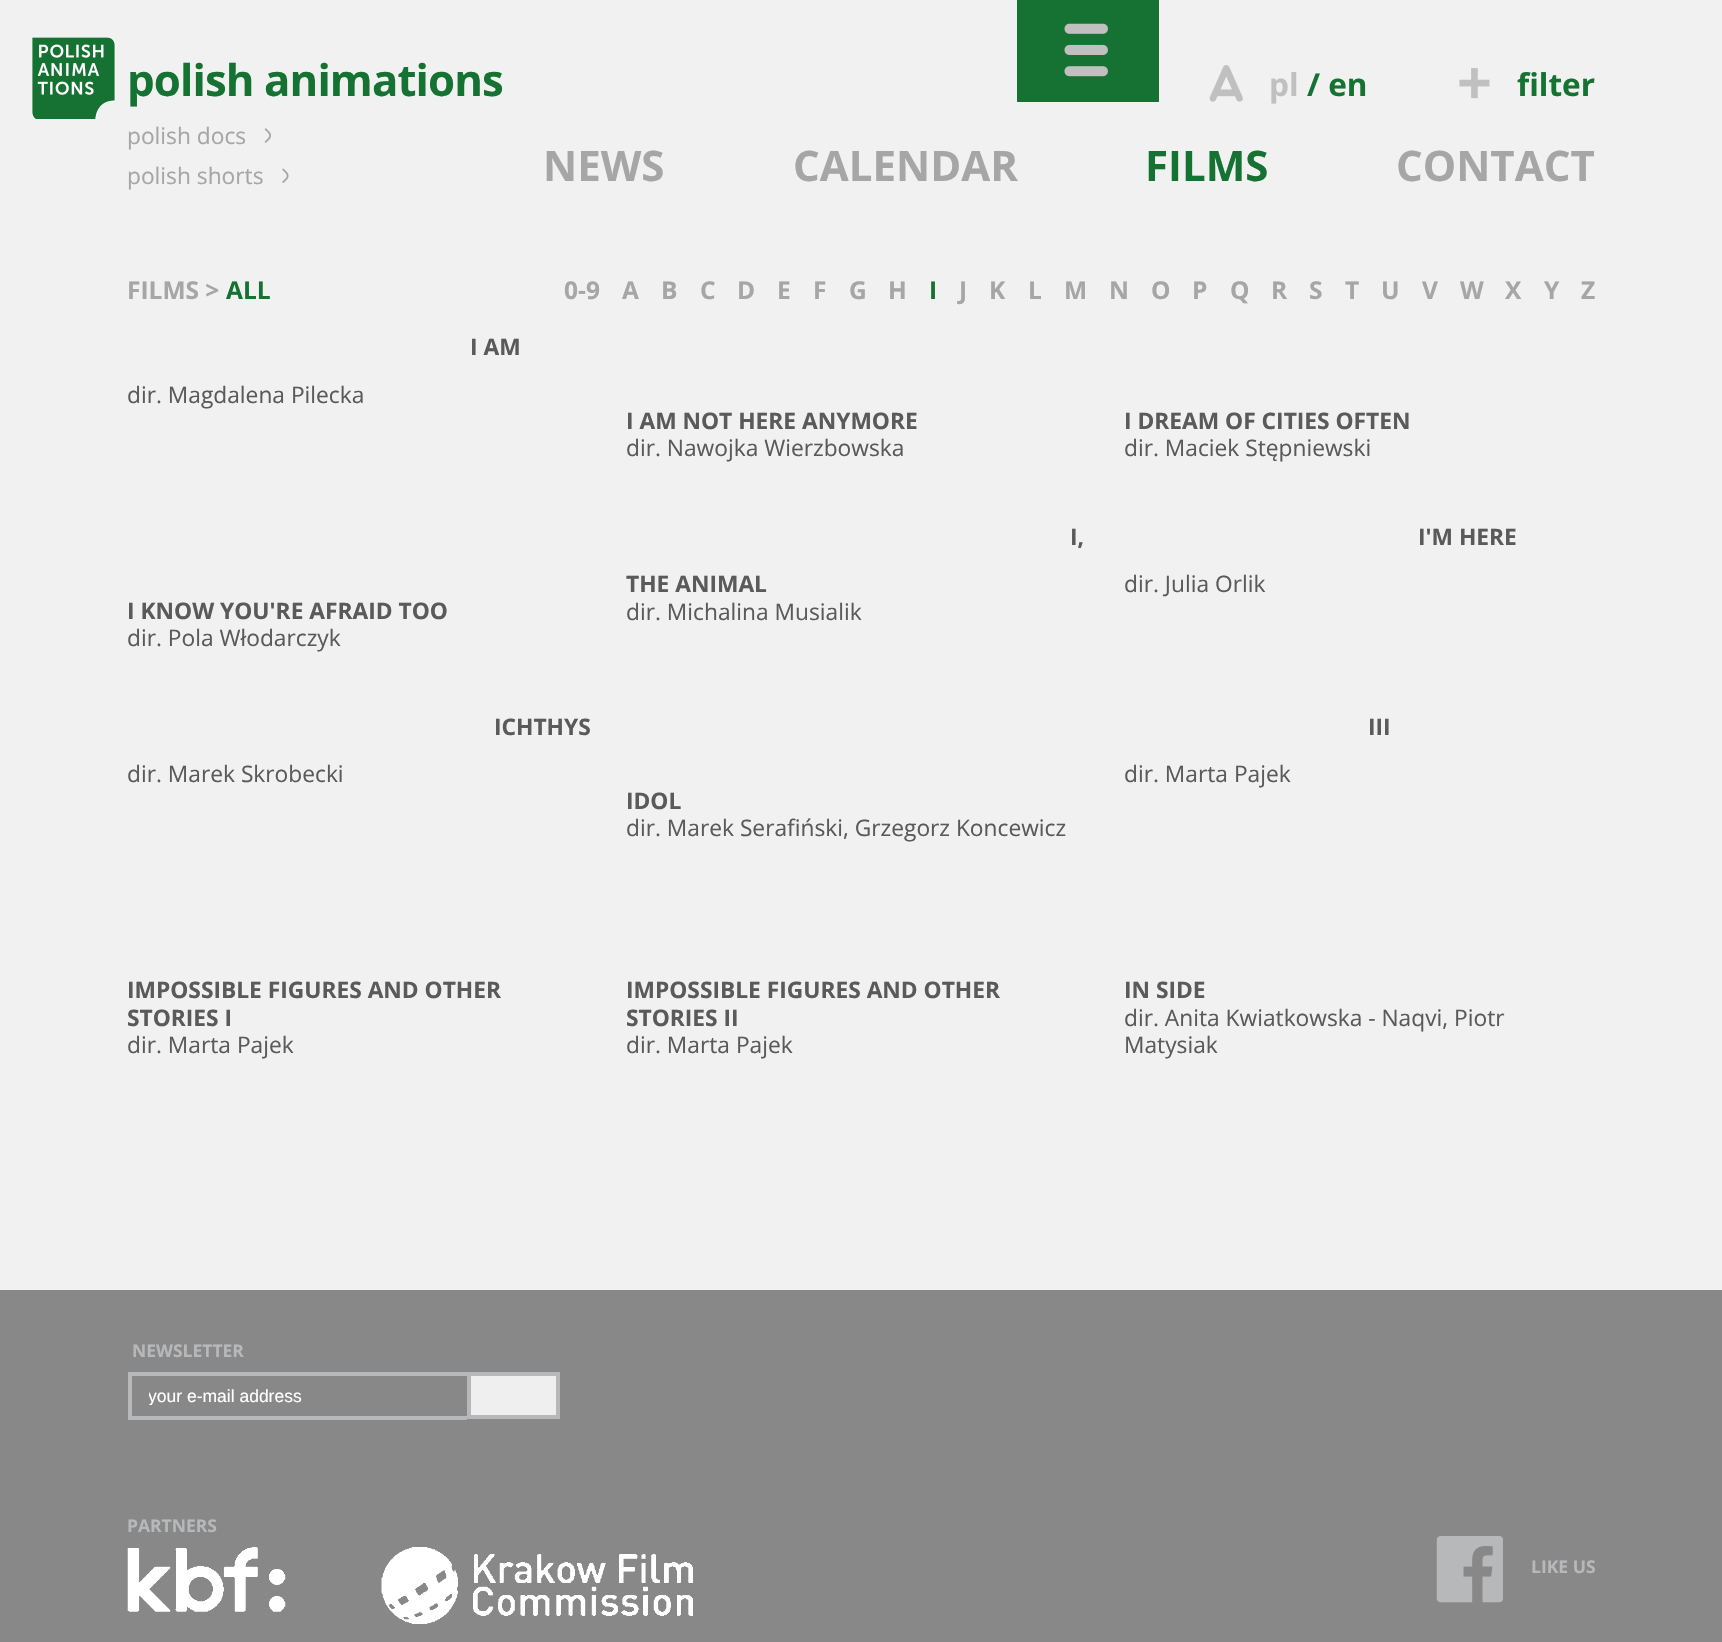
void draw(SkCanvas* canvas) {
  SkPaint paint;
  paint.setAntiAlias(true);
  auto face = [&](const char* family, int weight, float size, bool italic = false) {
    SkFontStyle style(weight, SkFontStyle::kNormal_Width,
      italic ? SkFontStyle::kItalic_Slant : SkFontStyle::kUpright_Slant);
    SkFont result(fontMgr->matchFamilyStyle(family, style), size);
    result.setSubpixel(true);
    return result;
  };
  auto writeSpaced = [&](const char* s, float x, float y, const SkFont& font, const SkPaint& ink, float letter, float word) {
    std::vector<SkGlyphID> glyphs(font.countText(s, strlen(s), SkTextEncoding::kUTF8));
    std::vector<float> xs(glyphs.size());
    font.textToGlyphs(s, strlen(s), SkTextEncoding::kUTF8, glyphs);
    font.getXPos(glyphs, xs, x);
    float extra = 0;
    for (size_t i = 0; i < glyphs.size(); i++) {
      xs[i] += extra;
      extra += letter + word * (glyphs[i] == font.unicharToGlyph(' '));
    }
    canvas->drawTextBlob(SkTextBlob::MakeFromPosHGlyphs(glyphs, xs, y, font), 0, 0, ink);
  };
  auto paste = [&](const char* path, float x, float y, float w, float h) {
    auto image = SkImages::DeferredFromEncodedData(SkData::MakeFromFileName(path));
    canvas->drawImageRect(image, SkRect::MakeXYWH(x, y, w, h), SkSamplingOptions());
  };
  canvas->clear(0xfff1f1f1);
  paste("img/1.png", 32, 37, 84, 82);
  paint.setColor(0xff157232);
  canvas->drawRect(SkRect::MakeXYWH(1017, 0, 142, 102), paint);
  paste("img/2.png", 1064, 23, 44, 54);
  paste("img/3.png", 1209, 65, 34, 37);
  paste("img/4.png", 1459, 68, 31, 31);
  paste("img/5.png", 264, 128, 7, 15);
  paste("img/6.png", 282, 168, 7, 15);
  {
    const struct { float x, y, w, h; SkColor color; } items[] = {
      {0, 1290, 1722, 352, 0xff888888},
      {128, 1372, 339, 4, 0xffb7b8ba},
      {128, 1416, 339, 4, 0xffb7b8ba},
      {128, 1372, 4, 47, 0xffb7b8ba},
    };
    for (auto [x, y, w, h, color] : items) {
      paint.setColor(color);
      canvas->drawRect(SkRect::MakeXYWH(x, y, w, h), paint);
    }
  }
  paint.setColor(0xffefefef);
  canvas->drawRect(SkRect::MakeXYWH(469, 1374, 89, 43), paint);
  paint.setStroke(true);
  paint.setStrokeWidth(4);
  paint.setColor(0xffb7b8ba);
  canvas->drawRect(SkRect::MakeXYWH(469, 1374, 89, 43), paint);
  paste("img/7.png", 127, 1547, 159, 65);
  paste("img/8.png", 381, 1547, 312, 77);
  paste("img/9.png", 1436, 1536, 67, 67);
  auto f0 = face("Open Sans", 700, 43.75f);
  paint.setStroke(false);
  paint.setColor(0xff157232);
  writeSpaced("polish animations", 127, 96, f0, paint, -0.9f, 0);
  auto f1 = face("Open Sans", 700, 31.5f);
  paint.setColor(0xffc1c0c1);
  canvas->drawString("pl", 1269, 96, f1, paint);
  paint.setColor(0xff157232);
  canvas->drawString("/ en", 1307, 96, f1, paint);
  canvas->drawString("filter", 1517, 96, f1, paint);
  auto f2 = face("Open Sans", 400, 22.75f);
  paint.setColor(0xffa6a6a6);
  canvas->drawString("polish docs", 127, 144, f2, paint);
  canvas->drawString("polish shorts", 127, 184, f2, paint);
  auto f3 = face("Open Sans", 700, 42);
  canvas->drawString("NEWS", 543, 181, f3, paint);
  canvas->drawString("CALENDAR", 793, 181, f3, paint);
  paint.setColor(0xff157232);
  canvas->drawString("FILMS", 1145, 181, f3, paint);
  paint.setColor(0xffa6a6a6);
  canvas->drawString("CONTACT", 1396, 181, f3, paint);
  auto f4 = face("Open Sans", 700, 24.5f);
  canvas->drawString("FILMS >", 127, 299, f4, paint);
  paint.setColor(0xff157232);
  canvas->drawString("ALL", 226, 299, f4, paint);
  paint.setColor(0xffa6a6a6);
  {
    const struct { const char* s; float x, y; } items[] = {
      {"0-9", 564, 299},
      {"A", 622, 299},
      {"B", 661, 299},
      {"C", 700, 299},
      {"D", 737, 299},
      {"E", 777, 299},
      {"F", 813, 299},
      {"G", 849, 299},
      {"H", 888, 299},
    };
    for (auto [s, x, y] : items) {
      canvas->drawString(s, x, y, f4, paint);
    }
  }
  paint.setColor(0xff157232);
  canvas->drawString("I", 929, 299, f4, paint);
  paint.setColor(0xffa6a6a6);
  {
    const struct { const char* s; float x, y; } items[] = {
      {"J", 959, 299},
      {"K", 989, 299},
      {"L", 1028, 299},
      {"M", 1064, 299},
      {"N", 1109, 299},
      {"O", 1151, 299},
      {"P", 1192, 299},
      {"Q", 1230, 299},
      {"R", 1271, 299},
      {"S", 1309, 299},
      {"T", 1345, 299},
      {"U", 1381, 299},
      {"V", 1422, 299},
      {"W", 1460, 299},
      {"X", 1505, 299},
      {"Y", 1544, 299},
      {"Z", 1581, 299},
    };
    for (auto [s, x, y] : items) {
      canvas->drawString(s, x, y, f4, paint);
    }
  }
  auto f5 = face("Open Sans", 700, 22.75f);
  paint.setColor(0xff5a5a5a);
  canvas->drawString("I AM", 470, 355, f5, paint);
  canvas->drawString("dir. Magdalena Pilecka", 127, 403, f2, paint);
  canvas->drawString("I AM NOT HERE ANYMORE", 626, 429, f5, paint);
  canvas->drawString("dir. Nawojka Wierzbowska", 626, 456, f2, paint);
  canvas->drawString("I DREAM OF CITIES OFTEN", 1124, 429, f5, paint);
  canvas->drawString("dir. Maciek Stępniewski", 1124, 456, f2, paint);
  canvas->drawString("I,", 1070, 545, f5, paint);
  canvas->drawString("THE ANIMAL", 626, 592, f5, paint);
  canvas->drawString("dir. Michalina Musialik", 626, 620, f2, paint);
  canvas->drawString("I'M HERE", 1418, 545, f5, paint);
  canvas->drawString("dir. Julia Orlik", 1124, 592, f2, paint);
  canvas->drawString("I KNOW YOU'RE AFRAID TOO", 127, 619, f5, paint);
  canvas->drawString("dir. Pola Włodarczyk", 127, 646, f2, paint);
  canvas->drawString("ICHTHYS", 494, 735, f5, paint);
  canvas->drawString("dir. Marek Skrobecki", 127, 782, f2, paint);
  canvas->drawString("III", 1368, 735, f5, paint);
  canvas->drawString("dir. Marta Pajek", 1124, 782, f2, paint);
  canvas->drawString("IDOL", 626, 809, f5, paint);
  canvas->drawString("dir. Marek Serafiński, Grzegorz Koncewicz", 626, 836, f2, paint);
  canvas->drawString("IMPOSSIBLE FIGURES AND OTHER", 127, 998, f5, paint);
  canvas->drawString("STORIES I", 127, 1026, f5, paint);
  canvas->drawString("dir. Marta Pajek", 127, 1053, f2, paint);
  canvas->drawString("IMPOSSIBLE FIGURES AND OTHER", 626, 998, f5, paint);
  canvas->drawString("STORIES II", 626, 1026, f5, paint);
  canvas->drawString("dir. Marta Pajek", 626, 1053, f2, paint);
  canvas->drawString("IN SIDE", 1124, 998, f5, paint);
  canvas->drawString("dir. Anita Kwiatkowska - Naqvi, Piotr", 1124, 1026, f2, paint);
  canvas->drawString("Matysiak", 1124, 1053, f2, paint);
  auto f6 = face("Open Sans", 700, 17.5f);
  paint.setColor(0xffb7b8ba);
  canvas->drawString("NEWSLETTER", 132, 1357, f6, paint);
  canvas->save();
  canvas->clipRect(SkRect::MakeXYWH(149, 1386, 315, 19));
  auto f7 = face("Liberation Sans", 400, 17.5f);
  paint.setColor(0xffffffff);
  canvas->drawString("your e-mail address", 148, 1402, f7, paint);
  canvas->restore();
  paint.setColor(0xffb7b8ba);
  canvas->drawString("PARTNERS", 127, 1532, f6, paint);
  canvas->drawString("LIKE US", 1531, 1573, f6, paint);
}
